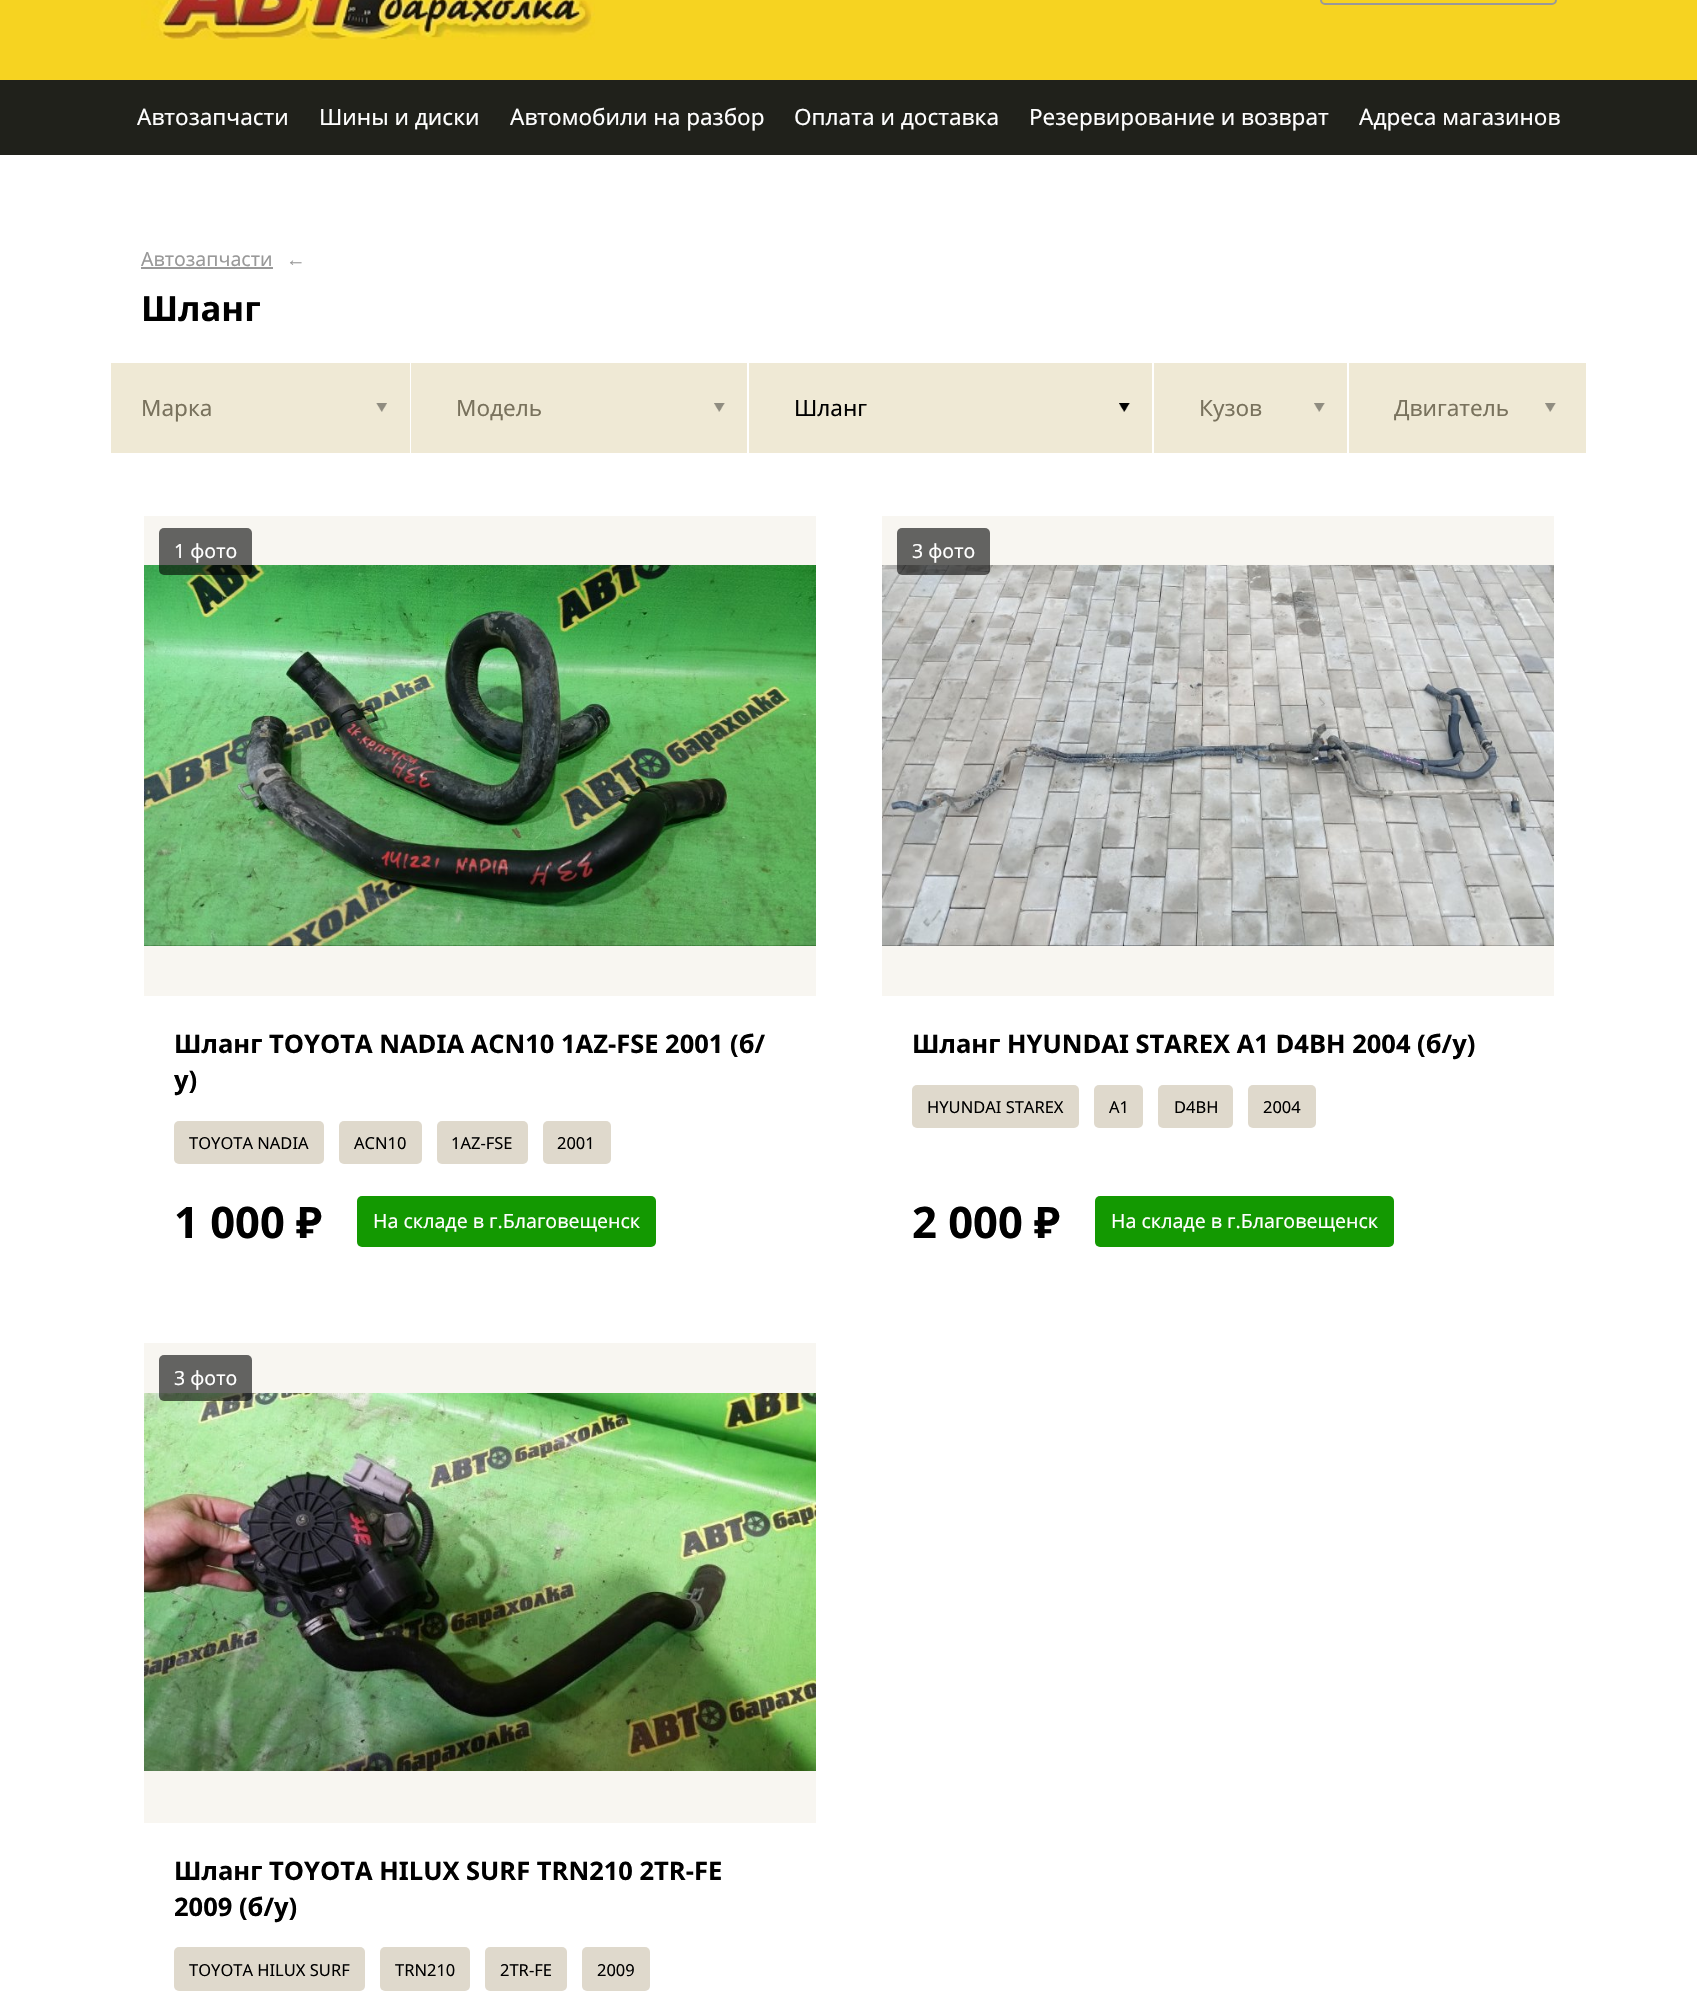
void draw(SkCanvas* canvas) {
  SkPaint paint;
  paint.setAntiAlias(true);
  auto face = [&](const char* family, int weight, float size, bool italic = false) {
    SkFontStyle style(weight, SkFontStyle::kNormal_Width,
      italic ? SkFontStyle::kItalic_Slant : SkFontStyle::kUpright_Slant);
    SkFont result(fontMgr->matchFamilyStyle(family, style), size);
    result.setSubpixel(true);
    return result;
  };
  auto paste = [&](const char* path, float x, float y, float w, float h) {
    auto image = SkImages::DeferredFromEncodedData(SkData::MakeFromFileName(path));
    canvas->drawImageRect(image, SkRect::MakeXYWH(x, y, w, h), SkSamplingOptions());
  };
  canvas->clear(0xffffffff);
  paint.setColor(0xfff6d321);
  canvas->drawRect(SkRect::MakeXYWH(0, 0, 1697, 80), paint);
  paste("img/1.png", 141, 0, 454, 40);
  paint.setStroke(true);
  paint.setStrokeWidth(2);
  paint.setColor(0xff999999);
  canvas->drawRoundRect(SkRect::MakeXYWH(1321, -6, 235, 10), 4, 4, paint);
  paint.setStroke(false);
  {
    const struct { float x, y, w, h; SkColor color; } items[] = {
      {0, 80, 1697, 75, 0xff20211b},
      {141, 267, 132, 2, 0xff999999},
      {111, 363, 299, 90, 0xffefe9d5},
    };
    for (auto [x, y, w, h, color] : items) {
      paint.setColor(color);
      canvas->drawRect(SkRect::MakeXYWH(x, y, w, h), paint);
    }
  }
  paste("img/2.png", 376, 403, 11, 9);
  canvas->drawRect(SkRect::MakeXYWH(411, 363, 336, 90), paint);
  paste("img/3.png", 714, 403, 11, 9);
  canvas->drawRect(SkRect::MakeXYWH(749, 363, 403, 90), paint);
  paste("img/4.png", 1119, 403, 11, 9);
  canvas->drawRect(SkRect::MakeXYWH(1154, 363, 193, 90), paint);
  paste("img/3.png", 1314, 403, 11, 9);
  canvas->drawRect(SkRect::MakeXYWH(1349, 363, 237, 90), paint);
  paste("img/5.png", 1545, 403, 11, 9);
  paint.setColor(0xfff8f6f1);
  canvas->drawRect(SkRect::MakeXYWH(144, 516, 672, 480), paint);
  paste("img/6.png", 144, 565, 672, 381);
  paint.setColor(0x99000000);
  canvas->drawRoundRect(SkRect::MakeXYWH(159, 528, 93, 47), 5, 5, paint);
  paint.setColor(0xffdfd9cc);
  canvas->drawRoundRect(SkRect::MakeXYWH(174, 1121, 150, 43), 5, 5, paint);
  canvas->drawRoundRect(SkRect::MakeXYWH(339, 1121, 83, 43), 5, 5, paint);
  canvas->drawRoundRect(SkRect::MakeXYWH(437, 1121, 91, 43), 5, 5, paint);
  canvas->drawRoundRect(SkRect::MakeXYWH(543, 1121, 68, 43), 5, 5, paint);
  paint.setColor(0xff139901);
  canvas->drawRoundRect(SkRect::MakeXYWH(357, 1196, 299, 51), 5, 5, paint);
  paint.setColor(0xfff8f6f1);
  canvas->drawRect(SkRect::MakeXYWH(882, 516, 672, 480), paint);
  paste("img/7.png", 882, 565, 672, 381);
  paint.setColor(0x99000000);
  canvas->drawRoundRect(SkRect::MakeXYWH(897, 528, 93, 47), 5, 5, paint);
  paint.setColor(0xffdfd9cc);
  canvas->drawRoundRect(SkRect::MakeXYWH(912, 1085, 167, 43), 5, 5, paint);
  canvas->drawRoundRect(SkRect::MakeXYWH(1094, 1085, 49, 43), 5, 5, paint);
  canvas->drawRoundRect(SkRect::MakeXYWH(1158, 1085, 75, 43), 5, 5, paint);
  canvas->drawRoundRect(SkRect::MakeXYWH(1248, 1085, 68, 43), 5, 5, paint);
  paint.setColor(0xff139901);
  canvas->drawRoundRect(SkRect::MakeXYWH(1095, 1196, 299, 51), 5, 5, paint);
  paint.setColor(0xfff8f6f1);
  canvas->drawRect(SkRect::MakeXYWH(144, 1343, 672, 480), paint);
  paste("img/8.png", 144, 1393, 672, 378);
  paint.setColor(0x99000000);
  canvas->drawRoundRect(SkRect::MakeXYWH(159, 1355, 93, 46), 5, 5, paint);
  paint.setColor(0xffdfd9cc);
  canvas->drawRoundRect(SkRect::MakeXYWH(174, 1947, 191, 44), 5, 5, paint);
  canvas->drawRoundRect(SkRect::MakeXYWH(380, 1947, 90, 44), 5, 5, paint);
  canvas->drawRoundRect(SkRect::MakeXYWH(485, 1947, 82, 44), 5, 5, paint);
  canvas->drawRoundRect(SkRect::MakeXYWH(582, 1947, 68, 44), 5, 5, paint);
  auto f0 = face("Noto Sans", 400, 22.5f);
  paint.setColor(0xffffffff);
  {
    const struct { const char* s; float x, y; } items[] = {
      {"Автозапчасти", 137, 125},
      {"Шины и диски", 319, 125},
      {"Автомобили на разбор", 510, 125},
      {"Оплата и доставка", 794, 125},
      {"Резервирование и возврат", 1029, 125},
      {"Адреса магазинов", 1359, 125},
    };
    for (auto [s, x, y] : items) {
      canvas->drawString(s, x, y, f0, paint);
    }
  }
  auto f1 = face("Noto Sans", 400, 19.5f);
  paint.setColor(0xff999999);
  canvas->drawString("Автозапчасти", 141, 266, f1, paint);
  canvas->drawString("←", 286, 266, f1, paint);
  auto f2 = face("Noto Sans", 700, 34.5f);
  paint.setColor(0xff000000);
  canvas->drawString("Шланг", 141, 321, f2, paint);
  paint.setColor(0xff79725d);
  canvas->drawString("Марка", 141, 416, f0, paint);
  canvas->drawString("Модель", 456, 416, f0, paint);
  paint.setColor(0xff000000);
  canvas->drawString("Шланг", 794, 416, f0, paint);
  paint.setColor(0xff79725d);
  canvas->drawString("Кузов", 1199, 416, f0, paint);
  {
    const SkColor colors[] = {0x00efe9d5, 0xffefe9d5};
    const float stops[] = {0, 1};
    const SkPoint ends[] = {{1259, 408}, {1311, 408}};
    paint.setShader(SkGradientShader::MakeLinear(ends, colors, stops, 2, SkTileMode::kClamp));
    paint.setAlpha(255);
  }
  canvas->drawRect(SkRect::MakeXYWH(1260, 412, 1, 1), paint);
  canvas->save();
  canvas->clipRect(SkRect::MakeXYWH(1394, 363, 163, 90));
  paint.setShader(nullptr);
  paint.setColor(0xff79725d);
  canvas->drawString("Двигатель", 1394, 416, f0, paint);
  canvas->restore();
  {
    const SkColor colors[] = {0x00efe9d5, 0xffefe9d5};
    const float stops[] = {0, 1};
    const SkPoint ends[] = {{1505, 408}, {1557, 408}};
    paint.setShader(SkGradientShader::MakeLinear(ends, colors, stops, 2, SkTileMode::kClamp));
    paint.setAlpha(255);
  }
  canvas->drawRect(SkRect::MakeXYWH(1506, 410, 1, 5), paint);
  paint.setShader(nullptr);
  paint.setColor(0xffffffff);
  canvas->drawString("1 фото", 174, 558, f1, paint);
  auto f3 = face("Noto Sans", 700, 25.5f);
  paint.setColor(0xff000000);
  canvas->drawString("Шланг TOYOTA NADIA ACN10 1AZ-FSE 2001 (б/", 174, 1053, f3, paint);
  canvas->drawString("у)", 174, 1089, f3, paint);
  auto f4 = face("Noto Sans", 400, 16.5f);
  {
    const struct { const char* s; float x, y; } items[] = {
      {"TOYOTA NADIA", 189, 1149},
      {"ACN10", 354, 1149},
      {"1AZ-FSE", 451, 1149},
      {"2001", 557, 1149},
    };
    for (auto [s, x, y] : items) {
      canvas->drawString(s, x, y, f4, paint);
    }
  }
  auto f5 = face("Noto Sans", 700, 43.5f);
  canvas->drawString("1 000", 174, 1238, f5, paint);
  auto f6 = face("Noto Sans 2", 700, 43.5f);
  canvas->drawString("₽", 296, 1238, f6, paint);
  paint.setColor(0xffffffff);
  canvas->drawString("На складе в г.Благовещенск", 373, 1228, f1, paint);
  canvas->drawString("3 фото", 912, 558, f1, paint);
  paint.setColor(0xff000000);
  canvas->drawString("Шланг HYUNDAI STAREX A1 D4BH 2004 (б/у)", 912, 1053, f3, paint);
  {
    const struct { const char* s; float x, y; } items[] = {
      {"HYUNDAI STAREX", 927, 1113},
      {"A1", 1109, 1113},
      {"D4BH", 1174, 1113},
      {"2004", 1263, 1113},
    };
    for (auto [s, x, y] : items) {
      canvas->drawString(s, x, y, f4, paint);
    }
  }
  canvas->drawString("2 000", 912, 1238, f5, paint);
  canvas->drawString("₽", 1034, 1238, f6, paint);
  paint.setColor(0xffffffff);
  canvas->drawString("На складе в г.Благовещенск", 1111, 1228, f1, paint);
  canvas->drawString("3 фото", 174, 1385, f1, paint);
  paint.setColor(0xff000000);
  canvas->drawString("Шланг TOYOTA HILUX SURF TRN210 2TR-FE", 174, 1880, f3, paint);
  canvas->drawString("2009 (б/у)", 174, 1916, f3, paint);
  {
    const struct { const char* s; float x, y; } items[] = {
      {"TOYOTA HILUX SURF", 189, 1976},
      {"TRN210", 395, 1976},
      {"2TR-FE", 500, 1976},
      {"2009", 597, 1976},
    };
    for (auto [s, x, y] : items) {
      canvas->drawString(s, x, y, f4, paint);
    }
  }
}
